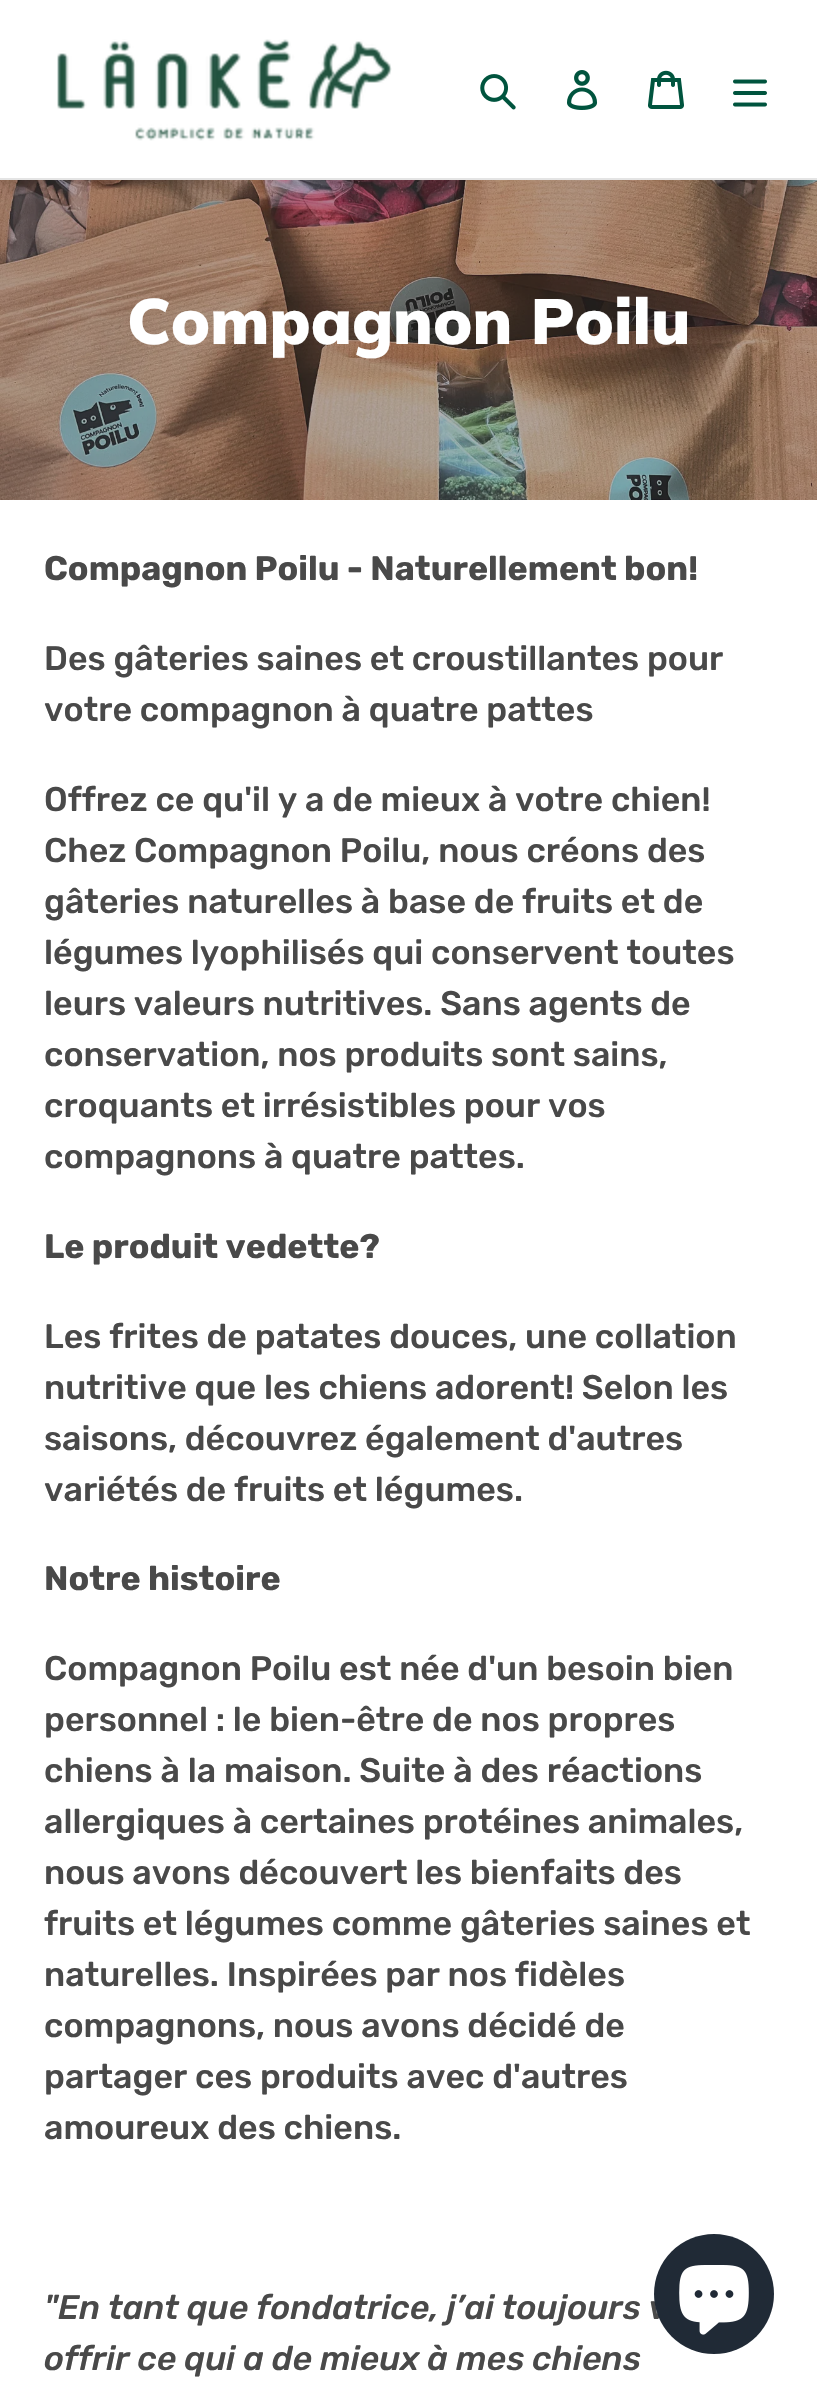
void draw(SkCanvas* canvas) {
  SkPaint paint;
  paint.setAntiAlias(true);
  auto face = [&](const char* family, int weight, float size, bool italic = false) {
    SkFontStyle style(weight, SkFontStyle::kNormal_Width,
      italic ? SkFontStyle::kItalic_Slant : SkFontStyle::kUpright_Slant);
    SkFont result(fontMgr->matchFamilyStyle(family, style), size);
    result.setSubpixel(true);
    return result;
  };
  auto paste = [&](const char* path, float x, float y, float w, float h) {
    auto image = SkImages::DeferredFromEncodedData(SkData::MakeFromFileName(path));
    canvas->drawImageRect(image, SkRect::MakeXYWH(x, y, w, h), SkSamplingOptions());
  };
  canvas->clear(0xffffffff);
  paint.setColor(0xffe4e4e4);
  canvas->drawRect(SkRect::MakeXYWH(0, 178, 817, 2), paint);
  paste("img/1.png", 57, 39, 335, 102);
  paste("img/2.png", 480, 74, 36, 36);
  paste("img/3.png", 567, 70, 31, 40);
  paste("img/4.png", 648, 70, 36, 39);
  paste("img/5.png", 733, 79, 34, 28);
  paste("img/6.png", 0, 180, 817, 320);
  auto f0 = face("Muli", 900, 64);
  paint.setColor(0xffffffff);
  canvas->drawString("Compagnon Poilu", 127, 344, f0, paint);
  auto f1 = face("Rubik", 700, 34);
  paint.setColor(0xff494949);
  canvas->drawString("Compagnon Poilu - Naturellement bon!", 44, 580, f1, paint);
  auto f2 = face("Rubik", 500, 34);
  {
    const struct { const char* s; float x, y; } items[] = {
      {"Des gâteries saines et croustillantes pour", 44, 670},
      {"votre compagnon à quatre pattes", 44, 721},
      {"Offrez ce qu'il y a de mieux à votre chien!", 44, 811},
      {"Chez Compagnon Poilu, nous créons des", 44, 862},
      {"gâteries naturelles à base de fruits et de", 44, 913},
      {"légumes lyophilisés qui conservent toutes", 44, 964},
      {"leurs valeurs nutritives. Sans agents de", 44, 1015},
      {"conservation, nos produits sont sains,", 44, 1066},
      {"croquants et irrésistibles pour vos", 44, 1117},
      {"compagnons à quatre pattes.", 44, 1168},
    };
    for (auto [s, x, y] : items) {
      canvas->drawString(s, x, y, f2, paint);
    }
  }
  canvas->drawString("Le produit vedette?", 44, 1258, f1, paint);
  {
    const struct { const char* s; float x, y; } items[] = {
      {"Les frites de patates douces, une collation", 44, 1348},
      {"nutritive que les chiens adorent! Selon les", 44, 1399},
      {"saisons, découvrez également d'autres", 44, 1450},
      {"variétés de fruits et légumes.", 44, 1501},
    };
    for (auto [s, x, y] : items) {
      canvas->drawString(s, x, y, f2, paint);
    }
  }
  canvas->drawString("Notre histoire", 44, 1590, f1, paint);
  {
    const struct { const char* s; float x, y; } items[] = {
      {"Compagnon Poilu est née d'un besoin bien", 44, 1680},
      {"personnel : le bien-être de nos propres", 44, 1731},
      {"chiens à la maison. Suite à des réactions", 44, 1782},
      {"allergiques à certaines protéines animales,", 44, 1833},
      {"nous avons découvert les bienfaits des", 44, 1884},
      {"fruits et légumes comme gâteries saines et", 44, 1935},
      {"naturelles. Inspirées par nos fidèles", 44, 1986},
      {"compagnons, nous avons décidé de", 44, 2037},
      {"partager ces produits avec d'autres", 44, 2088},
      {"amoureux des chiens.", 44, 2139},
    };
    for (auto [s, x, y] : items) {
      canvas->drawString(s, x, y, f2, paint);
    }
  }
  auto f3 = face("Rubik", 500, 34, true);
  canvas->drawString("\"En tant que fondatrice, j’ai toujours v", 44, 2319, f3, paint);
  canvas->drawString("offrir ce qui a de mieux à mes chiens", 44, 2370, f3, paint);
  paint.setColor(0xff202a36);
  canvas->drawCircle(714, 2294, 60, paint);
  paste("img/7.png", 679, 2265, 70, 70);
}
